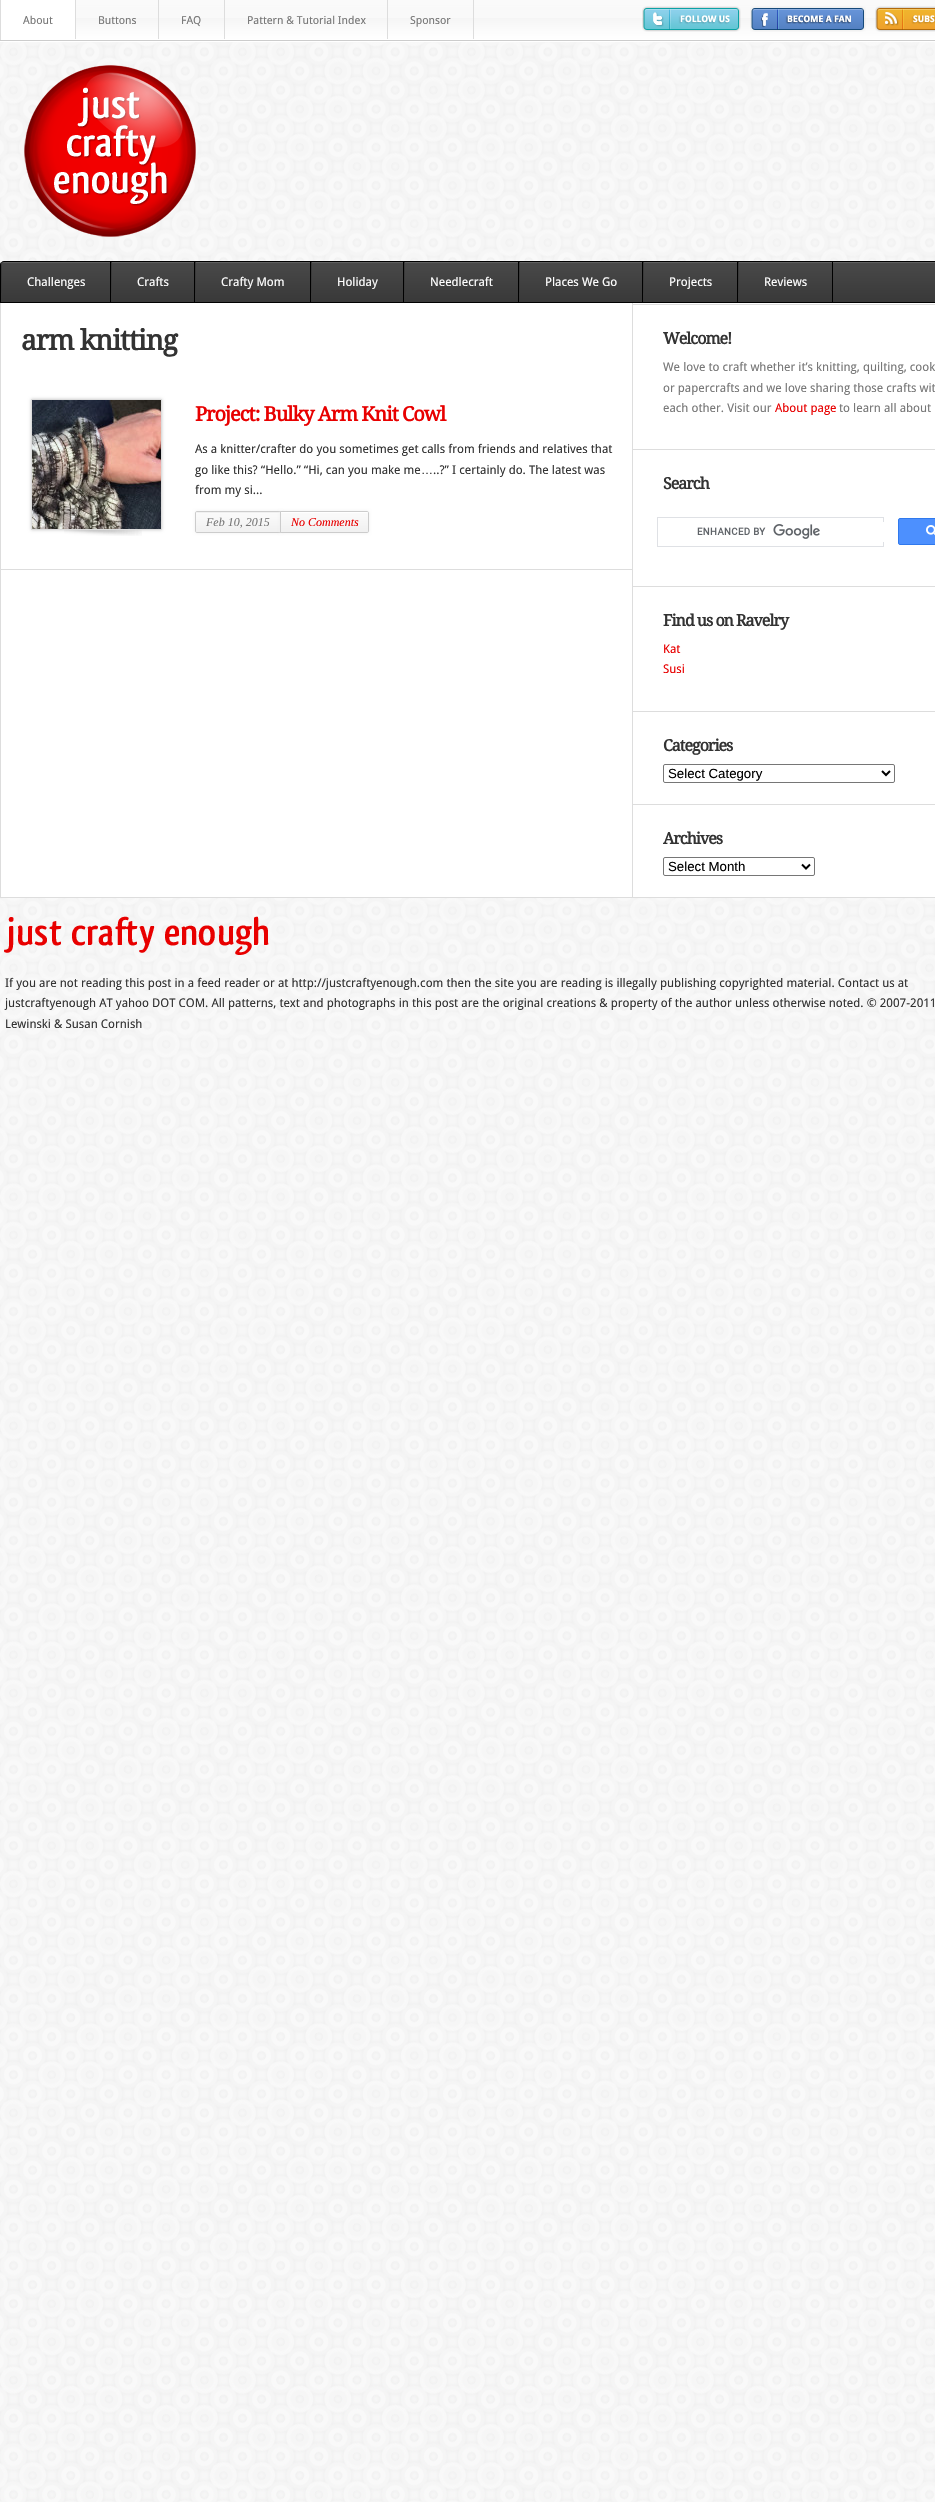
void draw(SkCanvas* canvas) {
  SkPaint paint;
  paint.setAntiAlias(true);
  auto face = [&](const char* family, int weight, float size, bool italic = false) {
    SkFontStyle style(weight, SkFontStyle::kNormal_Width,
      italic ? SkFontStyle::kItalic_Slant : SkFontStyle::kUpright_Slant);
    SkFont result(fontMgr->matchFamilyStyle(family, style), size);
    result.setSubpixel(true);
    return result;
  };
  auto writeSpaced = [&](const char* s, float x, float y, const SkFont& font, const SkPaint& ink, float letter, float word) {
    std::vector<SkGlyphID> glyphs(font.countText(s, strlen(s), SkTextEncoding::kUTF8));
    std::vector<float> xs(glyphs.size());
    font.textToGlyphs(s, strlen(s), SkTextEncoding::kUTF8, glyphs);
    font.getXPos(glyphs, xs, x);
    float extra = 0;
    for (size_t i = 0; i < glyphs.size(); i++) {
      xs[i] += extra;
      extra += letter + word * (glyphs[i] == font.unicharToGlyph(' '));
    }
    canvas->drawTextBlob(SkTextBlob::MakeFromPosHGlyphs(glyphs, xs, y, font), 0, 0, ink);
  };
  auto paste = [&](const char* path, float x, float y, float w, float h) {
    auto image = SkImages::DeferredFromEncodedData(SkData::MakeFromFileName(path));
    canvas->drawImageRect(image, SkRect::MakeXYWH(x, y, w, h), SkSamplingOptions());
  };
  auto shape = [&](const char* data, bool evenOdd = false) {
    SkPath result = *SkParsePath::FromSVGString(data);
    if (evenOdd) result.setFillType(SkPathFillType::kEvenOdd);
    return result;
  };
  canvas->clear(0xffffffff);
  paste("img/1.png", 0, 42, 935, 2460);
  paste("img/2.png", 75, 0, 860, 40);
  {
    const struct { float x, y, w, h; SkColor color; } items[] = {
      {0, 40, 935, 1, 0xffcccccc},
      {0, 0, 1, 40, 0xffdddddd},
      {75, 0, 1, 39, 0xffdddddd},
      {158, 0, 1, 39, 0xffdddddd},
      {224, 0, 1, 39, 0xffdddddd},
      {473, 0, 1, 39, 0xffdddddd},
      {387, 0, 1, 39, 0xffdddddd},
    };
    for (auto [x, y, w, h, color] : items) {
      paint.setColor(color);
      canvas->drawRect(SkRect::MakeXYWH(x, y, w, h), paint);
    }
  }
  paste("img/3.png", 642, 6, 99, 26);
  paste("img/4.png", 750, 6, 116, 26);
  paste("img/5.png", 875, 6, 60, 26);
  paste("img/6.png", 24, 65, 172, 172);
  paste("img/7.png", 0, 262, 935, 40);
  paint.setColor(0xff000000);
  canvas->drawPath(shape("M4 261H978C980 261 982 263 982 265V303H0V265C0 263 2 261 4 261ZM4 262H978C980 262 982 263 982 265V302H1V265C1 263 2 262 4 262Z", true), paint);
  {
    const struct { float x, y, w, h; SkColor color; } items[] = {
      {110, 262, 1, 40, 0xff000000},
      {1, 262, 1, 31, 0xff3a3a3a},
      {194, 262, 1, 40, 0xff000000},
      {111, 262, 1, 31, 0xff3a3a3a},
      {310, 262, 1, 40, 0xff000000},
      {195, 262, 1, 31, 0xff3a3a3a},
      {403, 262, 1, 40, 0xff000000},
      {311, 262, 1, 31, 0xff3a3a3a},
      {518, 262, 1, 40, 0xff000000},
      {404, 262, 1, 31, 0xff3a3a3a},
      {642, 262, 1, 40, 0xff000000},
      {519, 262, 1, 31, 0xff3a3a3a},
      {737, 262, 1, 40, 0xff000000},
      {643, 262, 1, 31, 0xff3a3a3a},
      {832, 262, 1, 40, 0xff000000},
      {738, 262, 1, 31, 0xff3a3a3a},
      {1, 303, 934, 594, 0xffffffff},
      {0, 897, 935, 1, 0xffdddddd},
      {0, 303, 1, 595, 0xffdddddd},
      {632, 303, 1, 594, 0xffdddddd},
      {1, 569, 631, 1, 0xffdddddd},
    };
    for (auto [x, y, w, h, color] : items) {
      paint.setColor(color);
      canvas->drawRect(SkRect::MakeXYWH(x, y, w, h), paint);
    }
  }
  paste("img/8.png", 64, 530, 78, 6);
  paint.setColor(0xffcccccc);
  paint.setMaskFilter(SkMaskFilter::MakeBlur(kNormal_SkBlurStyle, 1.5f));
  canvas->drawRect(SkRect::MakeXYWH(31, 399, 131, 131), paint);
  paint.setMaskFilter(nullptr);
  paint.setStroke(true);
  paint.setStrokeWidth(1);
  paint.setColor(0xffdddddd);
  canvas->drawRect(SkRect::MakeXYWH(31.5f, 399.5f, 130, 130), paint);
  paste("img/9.png", 32, 400, 129, 129);
  paint.setStroke(false);
  paint.setColor(0xffeeeeee);
  paint.setMaskFilter(SkMaskFilter::MakeBlur(kNormal_SkBlurStyle, 1.5f));
  canvas->drawRoundRect(SkRect::MakeXYWH(195, 511, 86, 22), 2, 2, paint);
  paint.setMaskFilter(nullptr);
  paste("img/10.png", 195, 513, 85, 20);
  paint.setStroke(true);
  paint.setColor(0xffcccccc);
  canvas->drawPath(shape("M197 511.5H280.5V532.5H197C196 532.5 195.5 532 195.5 531V513C195.5 512 196 511.5 197 511.5Z"), paint);
  paint.setStroke(false);
  paint.setColor(0xffeeeeee);
  paint.setMaskFilter(SkMaskFilter::MakeBlur(kNormal_SkBlurStyle, 1.5f));
  canvas->drawRoundRect(SkRect::MakeXYWH(280, 511, 89, 22), 2, 2, paint);
  paint.setMaskFilter(nullptr);
  paste("img/11.png", 281, 512, 88, 21);
  paint.setStroke(true);
  paint.setColor(0xffcccccc);
  canvas->drawPath(shape("M280.5 511.5H367C368 511.5 368.5 512 368.5 513V531C368.5 532 368 532.5 367 532.5H280.5Z"), paint);
  paint.setStroke(false);
  paint.setColor(0xffdddddd);
  canvas->drawRect(SkRect::MakeXYWH(633, 304, 302, 1), paint);
  canvas->drawRect(SkRect::MakeXYWH(633, 449, 302, 1), paint);
  paint.setStroke(true);
  paint.setColor(0xffdfe1e5);
  canvas->drawRect(SkRect::MakeXYWH(657.5f, 517.5f, 226, 29), paint);
  paint.setStroke(false);
  paint.setColor(0xffffffff);
  canvas->drawRect(SkRect::MakeXYWH(883, 522, 1, 20), paint);
  paste("img/12.png", 697, 524, 123, 15);
  paint.setColor(0xff4d90fe);
  canvas->drawRoundRect(SkRect::MakeXYWH(898.5f, 518.5f, 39, 26), 1.5f, 1.5f, paint);
  paint.setStroke(true);
  paint.setColor(0xff3079ed);
  canvas->drawRoundRect(SkRect::MakeXYWH(898.5f, 518.5f, 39, 26), 1.5f, 1.5f, paint);
  paste("img/13.png", 926, 525, 9, 11);
  paint.setStroke(false);
  paint.setColor(0xffdddddd);
  canvas->drawRect(SkRect::MakeXYWH(633, 586, 302, 1), paint);
  canvas->drawRect(SkRect::MakeXYWH(633, 711, 302, 1), paint);
  paint.setStroke(true);
  paint.setColor(0xff767676);
  canvas->drawRoundRect(SkRect::MakeXYWH(663.5f, 764.5f, 231, 18), 1.5f, 1.5f, paint);
  paint.setStrokeWidth(2);
  paint.setColor(0xff000000);
  canvas->drawPath(shape("M882 771L886 775L890 771"), paint);
  paint.setStroke(false);
  paint.setColor(0xffdddddd);
  canvas->drawRect(SkRect::MakeXYWH(633, 804, 302, 1), paint);
  paint.setStroke(true);
  paint.setStrokeWidth(1);
  paint.setColor(0xff767676);
  canvas->drawRoundRect(SkRect::MakeXYWH(663.5f, 857.5f, 151, 18), 1.5f, 1.5f, paint);
  paint.setStrokeWidth(2);
  paint.setColor(0xff000000);
  canvas->drawPath(shape("M802 864.5L806 868.5L810 864.5"), paint);
  paste("img/14.png", 4, 916, 265, 39);
  auto f0 = face("Droid Sans", 400, 11);
  paint.setStroke(false);
  paint.setColor(0xff777777);
  {
    const struct { const char* s; float x, y; } items[] = {
      {"About", 23, 24},
      {"Buttons", 98, 24},
      {"FAQ", 181, 24},
      {"Pattern & Tutorial Index", 247, 24},
      {"Sponsor", 410, 24},
    };
    for (auto [s, x, y] : items) {
      canvas->drawString(s, x, y, f0, paint);
    }
  }
  auto f1 = face("Droid Sans", 400, 12);
  paint.setColor(0xffffffff);
  {
    const struct { const char* s; float x, y; } items[] = {
      {"Challenges", 27, 286},
      {"Crafts", 137, 286},
      {"Crafty Mom", 221, 286},
      {"Holiday", 337, 286},
      {"Needlecraft", 430, 286},
      {"Places We Go", 545, 286},
      {"Projects", 669, 286},
      {"Reviews", 764, 286},
    };
    for (auto [s, x, y] : items) {
      canvas->drawString(s, x, y, f1, paint);
    }
  }
  auto f2 = face("Droid Serif", 700, 28);
  paint.setColor(0xff333333);
  writeSpaced("arm knitting", 21, 350, f2, paint, -1, 0);
  auto f3 = face("Droid Serif", 700, 20);
  paint.setColor(0xffe80000);
  writeSpaced("Project: Bulky Arm Knit Cowl", 195, 421, f3, paint, -1, 0);
  paint.setColor(0xff333333);
  canvas->drawString("As a knitter/crafter do you sometimes get calls from friends and relatives that", 195, 453, f1, paint);
  canvas->drawString("go like this? “Hello.” “Hi, can you make me", 195, 474, f1, paint);
  auto f4 = face("Liberation Sans", 400, 12);
  canvas->drawString("…", 421, 474, f4, paint);
  canvas->drawString("..?” I certainly do. The latest was", 433, 474, f1, paint);
  canvas->drawString("from my si...", 195, 494, f1, paint);
  auto f5 = face("Liberation Serif", 400, 12, true);
  paint.setColor(0xff777777);
  canvas->drawString("Feb 10, 2015", 206, 526, f5, paint);
  paint.setColor(0xffe80000);
  canvas->drawString("No Comments", 291, 526, f5, paint);
  auto f6 = face("Droid Serif", 700, 16);
  paint.setColor(0xff333333);
  writeSpaced("Welcome!", 663, 344, f6, paint, -1, 0);
  paint.setColor(0xff777777);
  {
    const struct { const char* s; float x, y; } items[] = {
      {"We love to craft whether it’s knitting, quilting, cook", 663, 371},
      {"or papercrafts and we love sharing those crafts wit", 663, 392},
      {"each other. Visit our", 663, 412},
    };
    for (auto [s, x, y] : items) {
      canvas->drawString(s, x, y, f1, paint);
    }
  }
  paint.setColor(0xffe80000);
  canvas->drawString("About page", 775, 412, f1, paint);
  paint.setColor(0xff777777);
  canvas->drawString("to learn all about", 839, 412, f1, paint);
  paint.setColor(0xff333333);
  writeSpaced("Search", 663, 489, f6, paint, -1, 0);
  writeSpaced("Find us on Ravelry", 663, 626, f6, paint, -1, 0);
  paint.setColor(0xffe80000);
  canvas->drawString("Kat", 663, 653, f1, paint);
  canvas->drawString("Susi", 663, 673, f1, paint);
  paint.setColor(0xff333333);
  writeSpaced("Categories", 663, 751, f6, paint, -1, 0);
  auto f7 = face("Liberation Sans", 400, 13.25f);
  paint.setColor(0xff000000);
  canvas->drawString("Select Category", 668, 778, f7, paint);
  paint.setColor(0xff333333);
  writeSpaced("Archives", 663, 844, f6, paint, -1, 0);
  paint.setColor(0xff000000);
  canvas->drawString("Select Month", 668, 871, f7, paint);
  paint.setColor(0xff333333);
  {
    const struct { const char* s; float x, y; } items[] = {
      {"If you are not reading this post in a feed reader or at http://justcraftyenough.com then the site you are reading is illegally publishing copyrighted material. Contact us at", 5, 987},
      {"justcraftyenough AT yahoo DOT COM. All patterns, text and photographs in this post are the original creations & property of the author unless otherwise noted. © 2007-2011", 5, 1007},
      {"Lewinski & Susan Cornish", 5, 1028},
    };
    for (auto [s, x, y] : items) {
      canvas->drawString(s, x, y, f1, paint);
    }
  }
}
